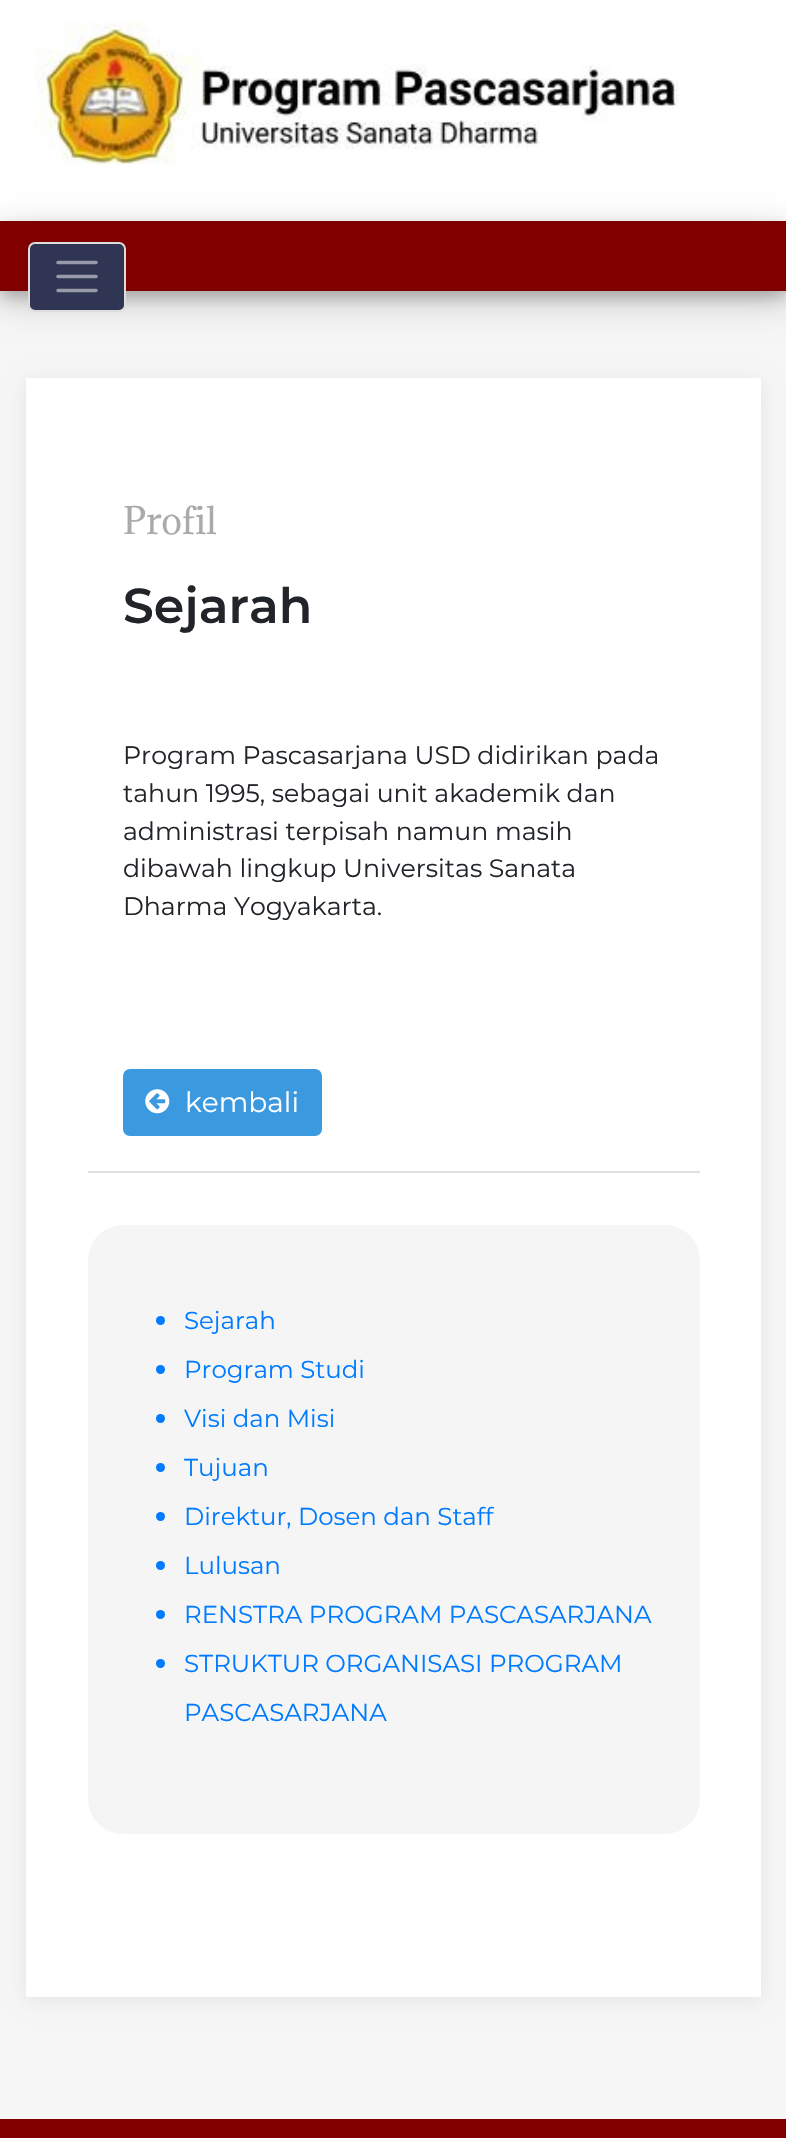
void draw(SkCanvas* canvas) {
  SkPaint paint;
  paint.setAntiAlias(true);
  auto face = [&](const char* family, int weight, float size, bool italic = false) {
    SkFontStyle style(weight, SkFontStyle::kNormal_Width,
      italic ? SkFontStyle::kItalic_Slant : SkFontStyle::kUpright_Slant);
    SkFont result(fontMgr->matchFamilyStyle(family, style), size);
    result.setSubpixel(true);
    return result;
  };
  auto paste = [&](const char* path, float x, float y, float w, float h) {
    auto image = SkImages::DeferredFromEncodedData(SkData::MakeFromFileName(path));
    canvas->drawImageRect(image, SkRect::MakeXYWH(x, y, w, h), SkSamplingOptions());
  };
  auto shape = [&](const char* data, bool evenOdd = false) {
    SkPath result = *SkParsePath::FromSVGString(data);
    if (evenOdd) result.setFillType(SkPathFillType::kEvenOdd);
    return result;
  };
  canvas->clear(0xffffffff);
  paste("img/1.png", 34, 20, 645, 146);
  paint.setColor(0xfff6f6f6);
  canvas->drawRect(SkRect::MakeXYWH(0, 291, 786, 1828), paint);
  paint.setColor(0x30000000);
  paint.setMaskFilter(SkMaskFilter::MakeBlur(kNormal_SkBlurStyle, 17.5f));
  canvas->drawRect(SkRect::MakeXYWH(0, 231, 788, 70), paint);
  paint.setMaskFilter(nullptr);
  paint.setColor(0x33000000);
  paint.setMaskFilter(SkMaskFilter::MakeBlur(kNormal_SkBlurStyle, 7));
  canvas->drawRect(SkRect::MakeXYWH(0, 228, 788, 70), paint);
  paint.setMaskFilter(nullptr);
  paint.setColor(0xff800000);
  canvas->drawRect(SkRect::MakeXYWH(0, 221, 786, 70), paint);
  paint.setColor(0xff303553);
  canvas->drawRoundRect(SkRect::MakeXYWH(29, 243, 96, 68), 6, 6, paint);
  paint.setStroke(true);
  paint.setStrokeWidth(2);
  paint.setColor(0xffdddddd);
  canvas->drawRoundRect(SkRect::MakeXYWH(29, 243, 96, 68), 6, 6, paint);
  paint.setStrokeWidth(3.5f);
  paint.setStrokeCap(SkPaint::kRound_Cap);
  paint.setColor(0xff989aa9);
  canvas->drawPath(shape("M58 262.5H96M58 276.5H96M58 290.5H96"), paint);
  paint.setStroke(false);
  paint.setColor(0x12000000);
  paint.setMaskFilter(SkMaskFilter::MakeBlur(kNormal_SkBlurStyle, 9));
  canvas->drawRect(SkRect::MakeXYWH(26, 382, 735, 1618), paint);
  paint.setMaskFilter(nullptr);
  paint.setColor(0xffffffff);
  canvas->drawRect(SkRect::MakeXYWH(26, 378, 735, 1619), paint);
  paint.setColor(0xffe0e0e0);
  canvas->drawRect(SkRect::MakeXYWH(88, 1171, 612, 2), paint);
  paint.setColor(0xff3b99e0);
  canvas->drawRoundRect(SkRect::MakeXYWH(124, 1070, 197, 65), 6, 6, paint);
  paint.setStroke(true);
  paint.setStrokeWidth(2);
  paint.setStrokeCap(SkPaint::kButt_Cap);
  canvas->drawRoundRect(SkRect::MakeXYWH(124, 1070, 197, 65), 6, 6, paint);
  paste("img/2.png", 145, 1089, 25, 25);
  paint.setStroke(false);
  paint.setColor(0xfff5f5f5);
  canvas->drawRoundRect(SkRect::MakeXYWH(88, 1225, 612, 609), 35, 35, paint);
  paint.setColor(0xff007bff);
  canvas->drawCircle(160.5f, 1320.5f, 4.5f, paint);
  canvas->drawCircle(160.5f, 1369.5f, 4.5f, paint);
  canvas->drawCircle(160.5f, 1418.5f, 4.5f, paint);
  canvas->drawCircle(160.5f, 1467.5f, 4.5f, paint);
  canvas->drawCircle(160.5f, 1516.5f, 4.5f, paint);
  canvas->drawCircle(160.5f, 1565.5f, 4.5f, paint);
  canvas->drawCircle(160.5f, 1614.5f, 4.5f, paint);
  canvas->drawCircle(160.5f, 1663.5f, 4.5f, paint);
  paint.setColor(0xff800000);
  canvas->drawRect(SkRect::MakeXYWH(0, 2119, 786, 19), paint);
  auto f0 = face("Adamina", 400, 35);
  paint.setColor(0xffaaaaaa);
  canvas->drawString("Profil", 123, 534, f0, paint);
  auto f1 = face("Montserrat", 600, 49);
  paint.setColor(0xff212529);
  canvas->drawString("Sejarah", 123, 623, f1, paint);
  auto f2 = face("Montserrat", 400, 25.2f);
  {
    const struct { const char* s; float x, y; } items[] = {
      {"Program Pascasarjana USD didirikan pada", 123, 764},
      {"tahun 1995, sebagai unit akademik dan", 123, 802},
      {"administrasi terpisah namun masih", 123, 840},
      {"dibawah lingkup Universitas Sanata", 123, 877},
      {"Dharma Yogyakarta.", 123, 915},
    };
    for (auto [s, x, y] : items) {
      canvas->drawString(s, x, y, f2, paint);
    }
  }
  auto f3 = face("Montserrat", 400, 28);
  paint.setColor(0xffffffff);
  canvas->drawString("kembali", 185, 1112, f3, paint);
  auto f4 = face("Montserrat", 400, 24.5f);
  paint.setColor(0xff007bff);
  {
    const struct { const char* s; float x, y; } items[] = {
      {"Sejarah", 184, 1329},
      {"Program Studi", 184, 1378},
      {"Visi dan Misi", 184, 1427},
      {"Tujuan", 184, 1476},
      {"Direktur, Dosen dan Staff", 184, 1525},
      {"Lulusan", 184, 1574},
      {"RENSTRA PROGRAM PASCASARJANA", 184, 1623},
      {"STRUKTUR ORGANISASI PROGRAM", 184, 1672},
      {"PASCASARJANA", 184, 1721},
    };
    for (auto [s, x, y] : items) {
      canvas->drawString(s, x, y, f4, paint);
    }
  }
}
